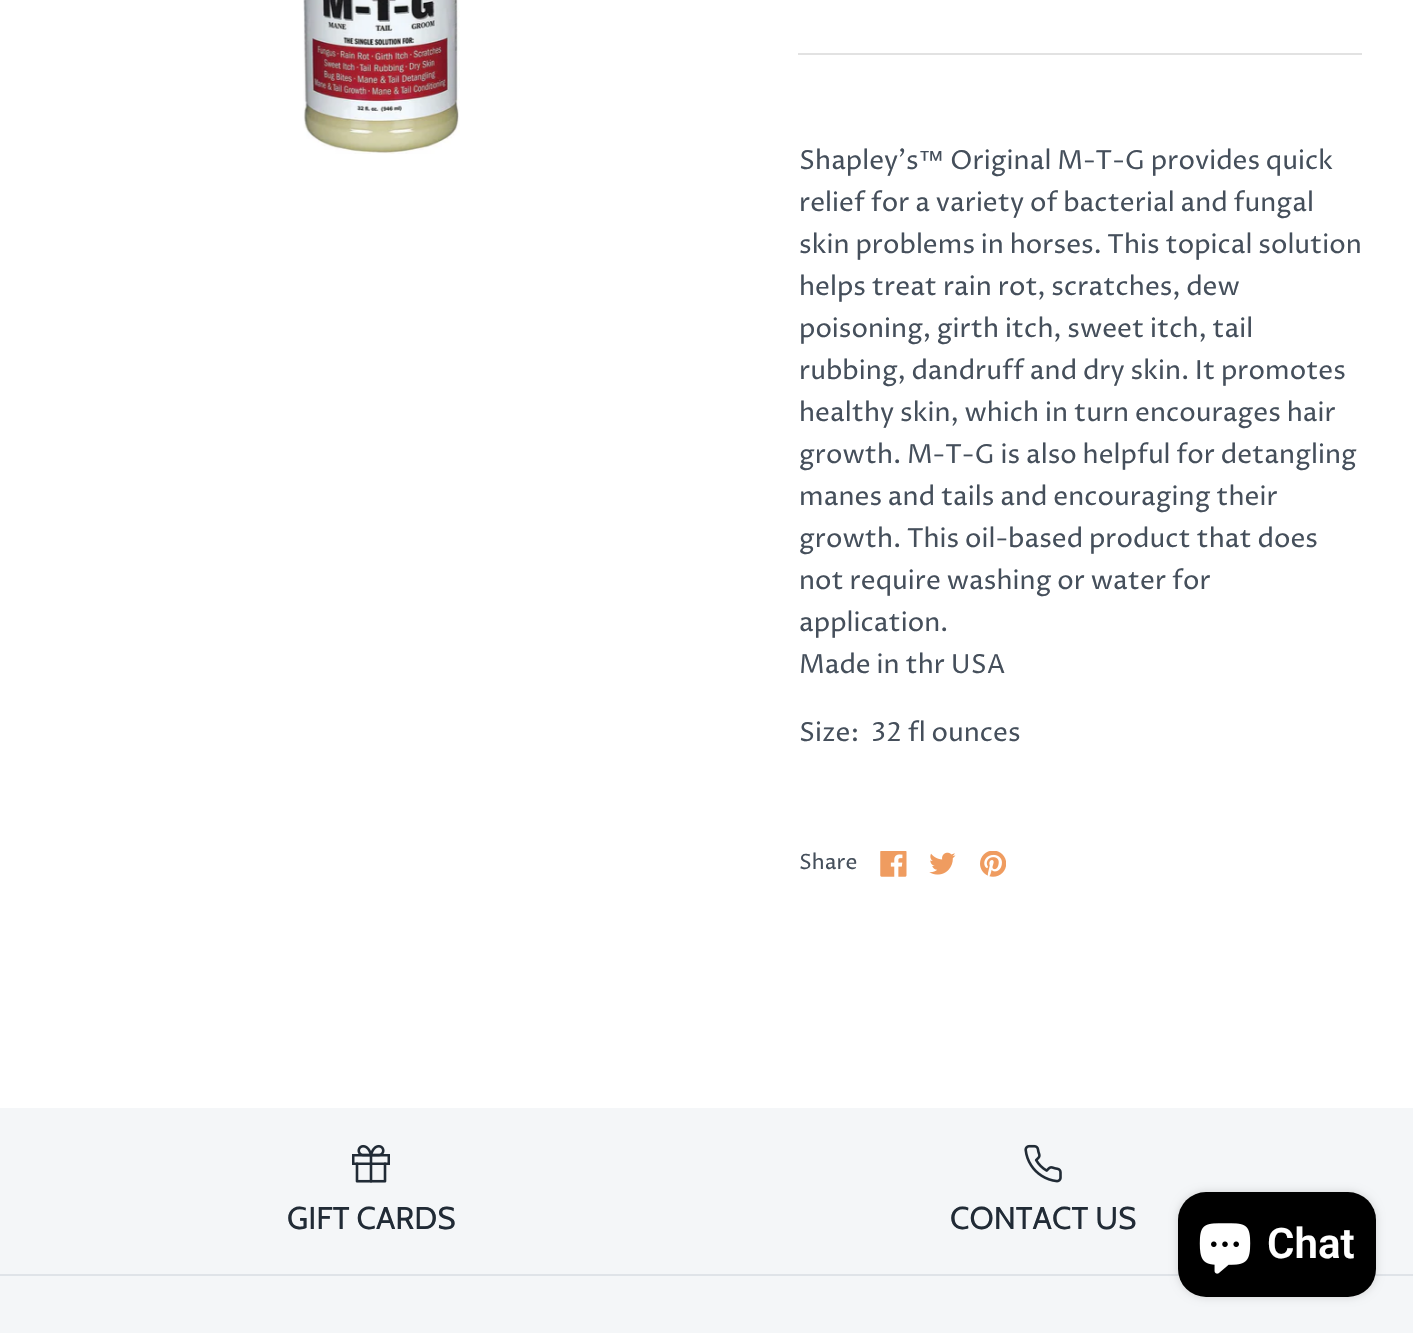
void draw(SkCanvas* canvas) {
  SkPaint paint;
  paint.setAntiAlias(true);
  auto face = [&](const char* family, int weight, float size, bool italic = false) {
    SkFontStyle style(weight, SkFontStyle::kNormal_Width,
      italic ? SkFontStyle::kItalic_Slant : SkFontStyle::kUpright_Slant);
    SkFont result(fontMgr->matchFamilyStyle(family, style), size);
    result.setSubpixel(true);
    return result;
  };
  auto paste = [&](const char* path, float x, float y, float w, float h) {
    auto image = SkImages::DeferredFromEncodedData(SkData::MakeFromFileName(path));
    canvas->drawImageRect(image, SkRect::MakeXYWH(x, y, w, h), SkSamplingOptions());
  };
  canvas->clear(0xffffffff);
  paste("img/1.png", 303, 0, 157, 154);
  paint.setColor(0xffe2e2e2);
  canvas->drawRect(SkRect::MakeXYWH(798, 53, 564, 2), paint);
  paste("img/2.png", 880, 851, 27, 26);
  paste("img/3.png", 929, 852, 27, 23);
  paste("img/4.png", 980, 851, 26, 26);
  paint.setColor(0xfff4f6f8);
  canvas->drawRect(SkRect::MakeXYWH(0, 1108, 1413, 225), paint);
  paste("img/5.png", 352, 1144, 38, 39);
  paste("img/6.png", 1024, 1144, 38, 39);
  paint.setColor(0xffdfe3e8);
  canvas->drawRect(SkRect::MakeXYWH(0, 1274, 1413, 2), paint);
  paint.setColor(0x26000000);
  paint.setMaskFilter(SkMaskFilter::MakeBlur(kNormal_SkBlurStyle, 4.5f));
  canvas->drawRoundRect(SkRect::MakeXYWH(1178, 1192, 198, 105), 28, 28, paint);
  paint.setMaskFilter(nullptr);
  paint.setColor(0xff000000);
  canvas->drawRoundRect(SkRect::MakeXYWH(1178, 1192, 198, 105), 28, 28, paint);
  paste("img/7.png", 1199, 1223, 52, 51);
  auto f0 = face("Proza Libre", 400, 26.25f);
  paint.setColor(0xff454f5b);
  canvas->drawString("Shapley's", 799, 169, f0, paint);
  auto f1 = face("Liberation Sans", 400, 26.25f);
  canvas->drawString("™", 918, 169, f1, paint);
  {
    const struct { const char* s; float x, y; } items[] = {
      {"Original M-T-G provides quick", 950, 169},
      {"relief for a variety of bacterial and fungal", 799, 211},
      {"skin problems in horses. This topical solution", 799, 253},
      {"helps treat rain rot, scratches, dew", 799, 295},
      {"poisoning, girth itch, sweet itch, tail", 799, 337},
      {"rubbing, dandruff and dry skin. It promotes", 799, 379},
      {"healthy skin, which in turn encourages hair", 799, 421},
      {"growth. M-T-G is also helpful for detangling", 799, 463},
      {"manes and tails and encouraging their", 799, 505},
      {"growth. This oil-based product that does", 799, 547},
      {"not require washing or water for", 799, 589},
      {"application.", 799, 631},
      {"Made in thr USA", 799, 673},
      {"Size:  32 fl ounces", 799, 741},
    };
    for (auto [s, x, y] : items) {
      canvas->drawString(s, x, y, f0, paint);
    }
  }
  auto f2 = face("Proza Libre", 400, 21);
  canvas->drawString("Share", 799, 869, f2, paint);
  auto f3 = face("Cabin", 400, 31.5f);
  paint.setColor(0xff212b36);
  canvas->drawString("GIFT CARDS", 287, 1229, f3, paint);
  canvas->drawString("CONTACT US", 950, 1229, f3, paint);
  auto f4 = face("Roboto", 600, 42);
  paint.setColor(0xffffffff);
  canvas->drawString("Chat", 1267, 1258, f4, paint);
}
